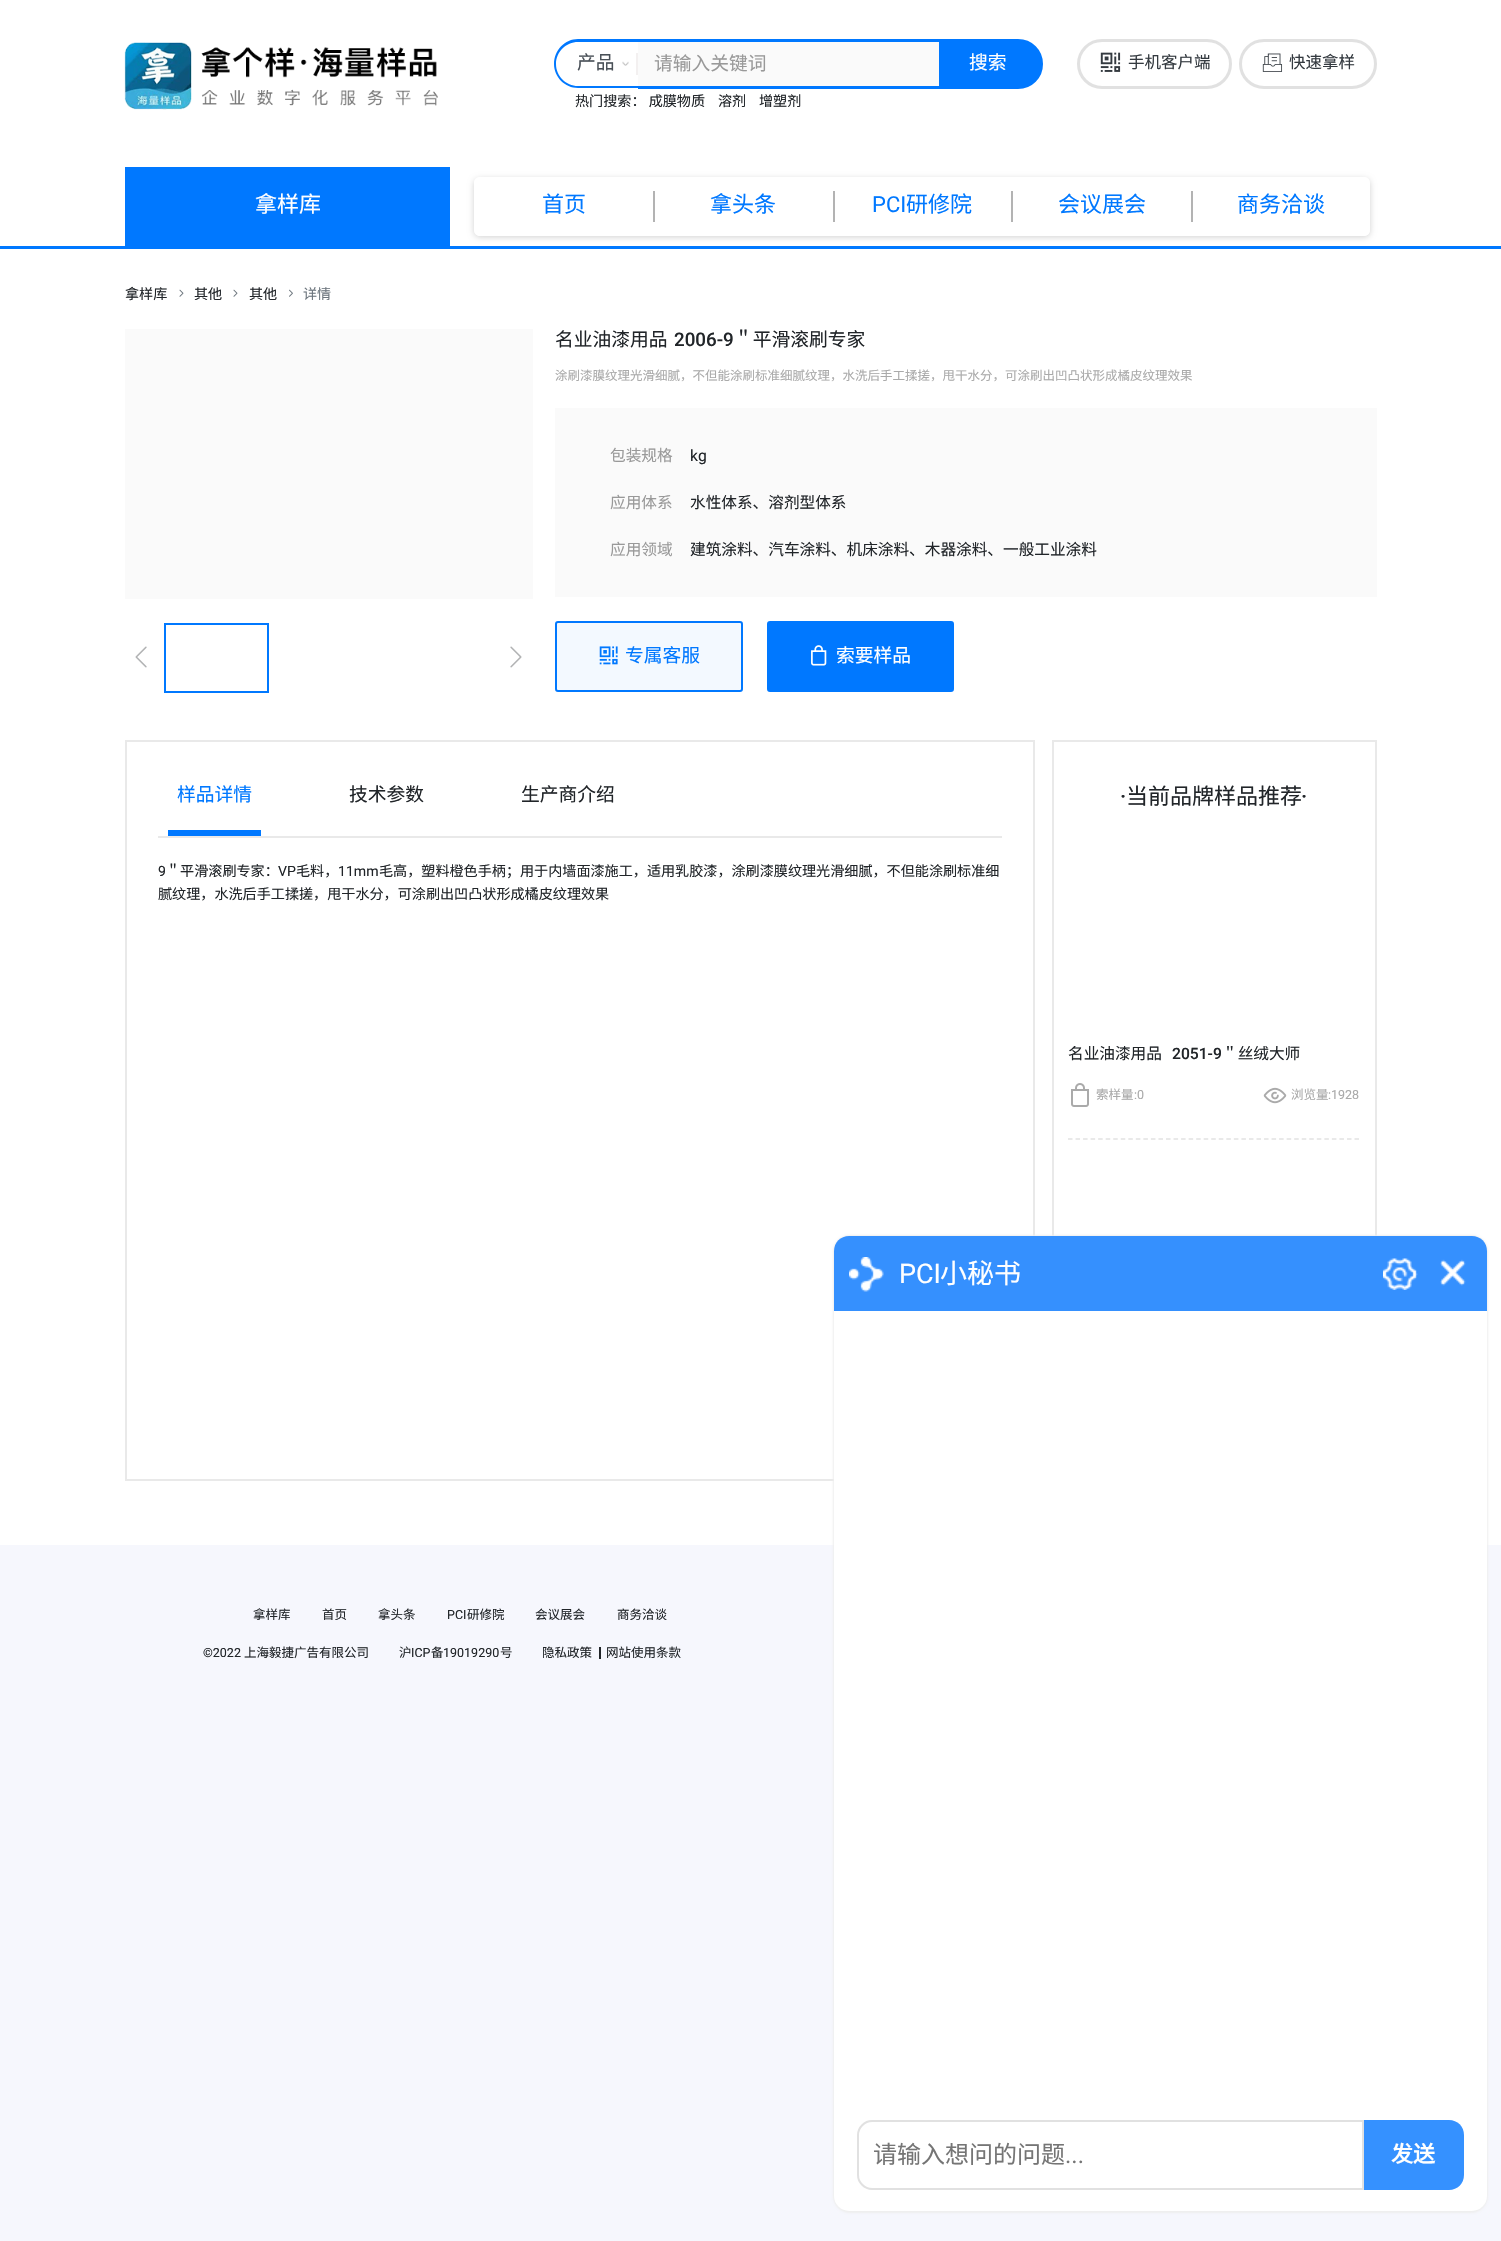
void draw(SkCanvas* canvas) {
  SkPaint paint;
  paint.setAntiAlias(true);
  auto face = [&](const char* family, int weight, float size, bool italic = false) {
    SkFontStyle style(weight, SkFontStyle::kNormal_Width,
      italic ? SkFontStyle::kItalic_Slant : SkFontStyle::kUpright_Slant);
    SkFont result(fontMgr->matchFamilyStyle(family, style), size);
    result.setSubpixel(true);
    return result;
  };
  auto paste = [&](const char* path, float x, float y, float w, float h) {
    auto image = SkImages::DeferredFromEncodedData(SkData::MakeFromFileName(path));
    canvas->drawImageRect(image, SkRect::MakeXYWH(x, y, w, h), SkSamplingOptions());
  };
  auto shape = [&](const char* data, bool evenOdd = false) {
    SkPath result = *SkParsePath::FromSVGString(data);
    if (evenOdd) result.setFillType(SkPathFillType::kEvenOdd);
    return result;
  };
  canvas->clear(0xfff6f7fd);
  paint.setColor(0xffffffff);
  canvas->drawRect(SkRect::MakeXYWH(0, 0, 1501, 246), paint);
  paste("img/1.png", 124, 42, 314, 68);
  paste("img/2.png", 622, 61, 7, 5);
  paint.setColor(0xff0078ff);
  canvas->drawPath(shape("M578 39H638V88H578C565 88 554 77 554 64C554 50 565 39 578 39ZM578 42H638V86H578C566 86 556 76 556 64C556 52 566 42 578 42Z", true), paint);
  {
    const struct { float x, y, w, h; SkColor color; } items[] = {
      {636, 53, 2, 22, 0xfff3f0f0},
      {638, 42, 301, 44, 0xfffafafa},
      {638, 39, 304, 3, 0xff0078ff},
      {939, 39, 2, 50, 0xff0078ff},
      {638, 86, 304, 3, 0xff0078ff},
    };
    for (auto [x, y, w, h, color] : items) {
      paint.setColor(color);
      canvas->drawRect(SkRect::MakeXYWH(x, y, w, h), paint);
    }
  }
  canvas->drawPath(shape("M942 40H1018C1031.5 40 1042 50.5 1042 64C1042 77.5 1031.5 88 1018 88H942Z"), paint);
  paint.setStroke(true);
  paint.setStrokeWidth(2);
  canvas->drawPath(shape("M942 40H1018C1031.5 40 1042 50.5 1042 64C1042 77.5 1031.5 88 1018 88H942Z"), paint);
  paint.setStrokeWidth(3);
  paint.setColor(0xffe1e1e1);
  canvas->drawRoundRect(SkRect::MakeXYWH(1078.5f, 40.5f, 152, 47), 23.5f, 23.5f, paint);
  paste("img/3.png", 1100, 52, 21, 20);
  canvas->drawRoundRect(SkRect::MakeXYWH(1240.5f, 40.5f, 135, 47), 23.5f, 23.5f, paint);
  paste("img/4.png", 1262, 53, 21, 19);
  paint.setStroke(false);
  paint.setColor(0xff0078ff);
  canvas->drawRect(SkRect::MakeXYWH(125, 167, 325, 79), paint);
  canvas->drawRect(SkRect::MakeXYWH(0, 246, 1501, 3), paint);
  canvas->save();
  canvas->clipPath(shape("M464 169H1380V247H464ZM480 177H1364C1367.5 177 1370 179.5 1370 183V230C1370 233.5 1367.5 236 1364 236H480C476.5 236 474 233.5 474 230V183C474 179.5 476.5 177 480 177Z", true), true);
  paint.setColor(0x2e000000);
  paint.setMaskFilter(SkMaskFilter::MakeBlur(kNormal_SkBlurStyle, 3));
  canvas->drawRoundRect(SkRect::MakeXYWH(474, 179, 896, 58), 6, 6, paint);
  paint.setMaskFilter(nullptr);
  canvas->restore();
  paint.setColor(0xccffffff);
  canvas->drawRoundRect(SkRect::MakeXYWH(474, 177, 896, 59), 6, 6, paint);
  {
    const struct { float x, y, w, h; SkColor color; } items[] = {
      {653, 191, 2, 31, 0xffb3b3b3},
      {833, 191, 2, 31, 0xffb3b3b3},
      {1011, 191, 2, 31, 0xffb3b3b3},
      {1191, 191, 2, 31, 0xffb3b3b3},
      {0, 249, 1501, 1296, 0xffffffff},
    };
    for (auto [x, y, w, h, color] : items) {
      paint.setColor(color);
      canvas->drawRect(SkRect::MakeXYWH(x, y, w, h), paint);
    }
  }
  paste("img/5.png", 179, 289, 5, 8);
  paste("img/5.png", 233, 289, 5, 8);
  paste("img/6.png", 289, 289, 4, 8);
  paint.setColor(0xfffafafa);
  canvas->drawRect(SkRect::MakeXYWH(125, 329, 408, 270), paint);
  paste("img/7.png", 135, 646, 12, 22);
  paint.setStroke(true);
  paint.setStrokeWidth(2);
  paint.setColor(0xff0078ff);
  canvas->drawRect(SkRect::MakeXYWH(165, 624, 103, 68), paint);
  paste("img/8.png", 510, 646, 12, 22);
  paint.setStroke(false);
  paint.setColor(0xfffafafa);
  canvas->drawRect(SkRect::MakeXYWH(555, 408, 822, 189), paint);
  paint.setColor(0xfff3f9ff);
  canvas->drawRoundRect(SkRect::MakeXYWH(556, 622, 186, 69), 2, 2, paint);
  paint.setStroke(true);
  paint.setColor(0xff0078ff);
  canvas->drawRoundRect(SkRect::MakeXYWH(556, 622, 186, 69), 2, 2, paint);
  paste("img/9.png", 599, 646, 19, 19);
  paint.setStroke(false);
  canvas->drawRoundRect(SkRect::MakeXYWH(768, 622, 185, 69), 2, 2, paint);
  paint.setStroke(true);
  canvas->drawRoundRect(SkRect::MakeXYWH(768, 622, 185, 69), 2, 2, paint);
  paste("img/10.png", 811, 645, 16, 21);
  paint.setColor(0xffe9e9e9);
  canvas->drawRect(SkRect::MakeXYWH(126, 741, 908, 739), paint);
  paint.setStroke(false);
  canvas->drawRect(SkRect::MakeXYWH(158, 836, 844, 2), paint);
  paint.setColor(0xff0078ff);
  canvas->drawRect(SkRect::MakeXYWH(168, 830, 93, 6), paint);
  paint.setStroke(true);
  paint.setColor(0xffe9e9e9);
  canvas->drawRect(SkRect::MakeXYWH(1053, 741, 323, 739), paint);
  paste("img/11.png", 1071, 1083, 18, 24);
  paste("img/12.png", 1263, 1087, 24, 17);
  paint.setStrokeWidth(1.5f);
  paint.setColor(0xffe2e2e2);
  paint.setPathEffect(SkDashPathEffect::Make({{4.5f, 3.04f}}, 0));
  canvas->drawPath(shape("M1068 1139H1359"), paint);
  paint.setPathEffect(nullptr);
  paint.setStroke(false);
  paint.setColor(0xff212529);
  canvas->drawRect(SkRect::MakeXYWH(599, 1647, 2, 12), paint);
  paint.setColor(0xffefefef);
  paint.setMaskFilter(SkMaskFilter::MakeBlur(kNormal_SkBlurStyle, 1));
  canvas->drawRoundRect(SkRect::MakeXYWH(833, 1235, 655, 978), 17, 17, paint);
  paint.setMaskFilter(nullptr);
  paint.setColor(0xffffffff);
  canvas->drawRoundRect(SkRect::MakeXYWH(834, 1236, 653, 975), 15, 15, paint);
  paint.setColor(0xff3590fe);
  canvas->drawPath(shape("M849 1236H1472C1480.5 1236 1487 1242.5 1487 1251V1311H834V1251C834 1242.5 840.5 1236 849 1236Z"), paint);
  paste("img/13.png", 849, 1257, 35, 35);
  paste("img/14.png", 1383, 1258, 35, 32);
  paste("img/15.png", 1440, 1259, 26, 27);
  paint.setStroke(true);
  paint.setStrokeWidth(2);
  paint.setColor(0xffe1e1e1);
  canvas->drawPath(shape("M872 2121H1363V2189H872C864.5 2189 858 2182.5 858 2175V2135C858 2127.5 864.5 2121 872 2121Z"), paint);
  paint.setStroke(false);
  paint.setColor(0xff3591ff);
  canvas->drawPath(shape("M1364 2120H1449C1457.5 2120 1464 2126.5 1464 2135V2175C1464 2183.5 1457.5 2190 1449 2190H1364Z"), paint);
  auto f0 = face("Noto Sans CJK SC", 400, 18.75f);
  paint.setColor(0xff495057);
  canvas->drawString("产品", 577, 69, f0, paint);
  paint.setColor(0xff999999);
  canvas->drawString("请输入关键词", 654, 70, f0, paint);
  paint.setColor(0xffffffff);
  canvas->drawString("搜索", 969, 69, f0, paint);
  auto f1 = face("Noto Sans CJK SC", 400, 14.1f);
  paint.setColor(0xff212529);
  {
    const struct { const char* s; float x, y; } items[] = {
      {"热门搜索： 成膜物质", 575, 106},
      {"溶剂", 718, 106},
      {"增塑剂", 759, 106},
    };
    for (auto [s, x, y] : items) {
      canvas->drawString(s, x, y, f1, paint);
    }
  }
  auto f2 = face("Noto Sans CJK SC", 400, 16.5f);
  paint.setColor(0xff343a40);
  canvas->drawString("手机客户端", 1128, 68, f2, paint);
  canvas->drawString("快速拿样", 1289, 68, f2, paint);
  auto f3 = face("Noto Sans CJK SC", 400, 22);
  paint.setColor(0xffffffff);
  canvas->drawString("拿样库", 255, 212, f3, paint);
  paint.setColor(0xff0078ff);
  canvas->drawString("首页", 542, 212, f3, paint);
  canvas->drawString("拿头条", 710, 212, f3, paint);
  auto f4 = face("Roboto", 400, 22);
  canvas->drawString("PCI", 872, 212, f4, paint);
  {
    const struct { const char* s; float x, y; } items[] = {
      {"研修院", 906, 212},
      {"会议展会", 1058, 212},
      {"商务洽谈", 1237, 212},
    };
    for (auto [s, x, y] : items) {
      canvas->drawString(s, x, y, f3, paint);
    }
  }
  paint.setColor(0xff212529);
  {
    const struct { const char* s; float x, y; } items[] = {
      {"拿样库", 125, 299},
      {"其他", 194, 299},
      {"其他", 249, 299},
    };
    for (auto [s, x, y] : items) {
      canvas->drawString(s, x, y, f1, paint);
    }
  }
  paint.setColor(0xff6c757d);
  canvas->drawString("详情", 303, 299, f1, paint);
  paint.setColor(0xff212529);
  canvas->drawString("名业油漆用品", 555, 346, f0, paint);
  auto f5 = face("Roboto", 500, 18.75f);
  canvas->drawString("2006-9", 674, 346, f5, paint);
  canvas->drawString("＂平滑滚刷专家", 734, 346, f0, paint);
  auto f6 = face("Noto Sans CJK SC", 400, 12.5f);
  paint.setColor(0xffaaaaaa);
  canvas->drawString("涂刷漆膜纹理光滑细腻，不但能涂刷标准细腻纹理，水洗后手工揉搓，甩干水分，可涂刷出凹凸状形成橘皮纹理效果", 555, 380, f6, paint);
  auto f7 = face("Noto Sans CJK SC", 400, 15.65f);
  paint.setColor(0xff999999);
  canvas->drawString("包装规格", 610, 461, f7, paint);
  auto f8 = face("Roboto", 400, 15.65f);
  paint.setColor(0xff212529);
  canvas->drawString("kg", 690, 461, f8, paint);
  paint.setColor(0xff999999);
  canvas->drawString("应用体系", 610, 508, f7, paint);
  paint.setColor(0xff212529);
  canvas->drawString("水性体系、溶剂型体系", 690, 508, f7, paint);
  paint.setColor(0xff999999);
  canvas->drawString("应用领域", 610, 555, f7, paint);
  paint.setColor(0xff212529);
  canvas->drawString("建筑涂料、汽车涂料、机床涂料、木器涂料、一般工业涂料", 690, 555, f7, paint);
  paint.setColor(0xff0078ff);
  canvas->drawString("专属客服", 625, 662, f0, paint);
  paint.setColor(0xffffffff);
  canvas->drawString("索要样品", 836, 662, f0, paint);
  paint.setColor(0xff0078ff);
  canvas->drawString("样品详情", 177, 801, f0, paint);
  paint.setColor(0xff212529);
  canvas->drawString("技术参数", 349, 801, f0, paint);
  canvas->drawString("生产商介绍", 521, 801, f0, paint);
  auto f9 = face("Roboto", 400, 14.1f);
  canvas->drawString("9", 158, 876, f9, paint);
  canvas->drawString("＂平滑滚刷专家：", 166, 876, f1, paint);
  canvas->drawString("VP", 278, 876, f9, paint);
  canvas->drawString("毛料，", 296, 876, f1, paint);
  canvas->drawString("11mm", 338, 876, f9, paint);
  canvas->drawString("毛高，塑料橙色手柄；用于内墙面漆施工，适用乳胶漆，涂刷漆膜纹理光滑细腻，不但能涂刷标准细", 379, 876, f1, paint);
  canvas->drawString("腻纹理，水洗后手工揉搓，甩干水分，可涂刷出凹凸状形成橘皮纹理效果", 158, 899, f1, paint);
  auto f10 = face("Roboto", 500, 22);
  canvas->drawString("·", 1120, 804, f10, paint);
  canvas->drawString("当前品牌样品推荐", 1126, 804, f3, paint);
  canvas->drawString("·", 1301, 804, f10, paint);
  canvas->save();
  canvas->clipRect(SkRect::MakeXYWH(1068, 1046, 291, 19));
  canvas->drawString("名业油漆用品", 1068, 1059, f7, paint);
  canvas->restore();
  auto f11 = face("Roboto", 500, 15.65f);
  canvas->drawString("2051-9", 1172, 1059, f11, paint);
  canvas->save();
  canvas->clipRect(SkRect::MakeXYWH(1068, 1046, 291, 19));
  canvas->drawString("＂丝绒大师", 1222, 1059, f7, paint);
  canvas->restore();
  paint.setColor(0xffaaaaaa);
  canvas->drawString("索样量", 1096, 1099, f6, paint);
  auto f12 = face("Roboto", 400, 12.5f);
  canvas->drawString(":0", 1134, 1099, f12, paint);
  canvas->drawString("浏览量", 1291, 1099, f6, paint);
  canvas->drawString(":1928", 1328, 1099, f12, paint);
  paint.setColor(0xff212529);
  {
    const struct { const char* s; float x, y; } items[] = {
      {"拿样库", 253, 1619},
      {"首页", 322, 1619},
      {"拿头条", 378, 1619},
    };
    for (auto [s, x, y] : items) {
      canvas->drawString(s, x, y, f6, paint);
    }
  }
  canvas->drawString("PCI", 447, 1619, f12, paint);
  {
    const struct { const char* s; float x, y; } items[] = {
      {"研修院", 467, 1619},
      {"会议展会", 535, 1619},
      {"商务洽谈", 617, 1619},
    };
    for (auto [s, x, y] : items) {
      canvas->drawString(s, x, y, f6, paint);
    }
  }
  canvas->drawString("©2022", 203, 1657, f12, paint);
  canvas->drawString("上海毅捷广告有限公司", 244, 1657, f6, paint);
  canvas->drawString("沪", 399, 1657, f6, paint);
  canvas->drawString("ICP", 411, 1657, f12, paint);
  canvas->drawString("备", 431, 1657, f6, paint);
  canvas->drawString("19019290", 443, 1657, f12, paint);
  {
    const struct { const char* s; float x, y; } items[] = {
      {"号", 500, 1657},
      {"隐私政策", 542, 1657},
      {"网站使用条款", 606, 1657},
    };
    for (auto [s, x, y] : items) {
      canvas->drawString(s, x, y, f6, paint);
    }
  }
  auto f13 = face("Roboto", 400, 27);
  paint.setColor(0xffffffff);
  canvas->drawString("PCI", 899, 1283, f13, paint);
  auto f14 = face("Noto Sans CJK SC", 400, 27);
  canvas->drawString("小秘书", 940, 1283, f14, paint);
  auto f15 = face("Noto Sans CJK SC", 400, 24);
  paint.setColor(0xff757575);
  canvas->drawString("请输入想问的问题", 873, 2163, f15, paint);
  auto f16 = face("Roboto", 400, 24);
  canvas->drawString("...", 1065, 2163, f16, paint);
  auto f17 = face("Noto Sans CJK SC", 700, 22);
  paint.setColor(0xffffffff);
  canvas->drawString("发送", 1391, 2162, f17, paint);
}
